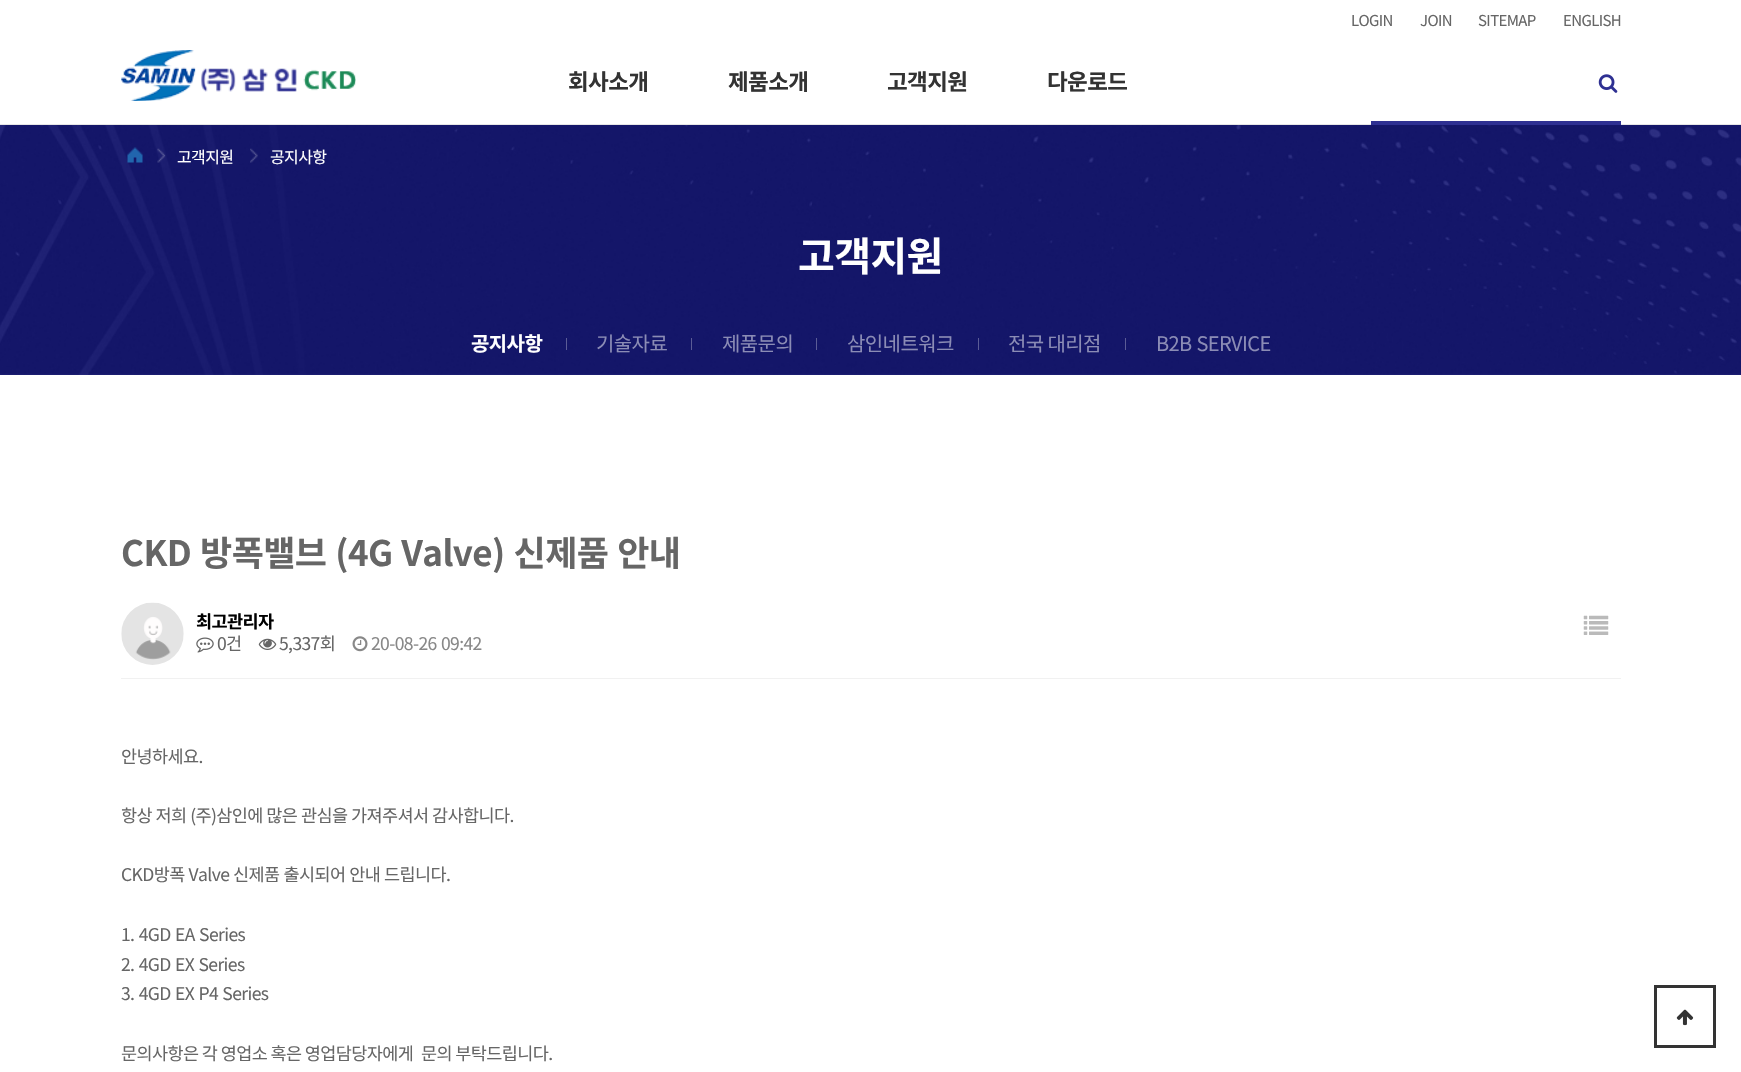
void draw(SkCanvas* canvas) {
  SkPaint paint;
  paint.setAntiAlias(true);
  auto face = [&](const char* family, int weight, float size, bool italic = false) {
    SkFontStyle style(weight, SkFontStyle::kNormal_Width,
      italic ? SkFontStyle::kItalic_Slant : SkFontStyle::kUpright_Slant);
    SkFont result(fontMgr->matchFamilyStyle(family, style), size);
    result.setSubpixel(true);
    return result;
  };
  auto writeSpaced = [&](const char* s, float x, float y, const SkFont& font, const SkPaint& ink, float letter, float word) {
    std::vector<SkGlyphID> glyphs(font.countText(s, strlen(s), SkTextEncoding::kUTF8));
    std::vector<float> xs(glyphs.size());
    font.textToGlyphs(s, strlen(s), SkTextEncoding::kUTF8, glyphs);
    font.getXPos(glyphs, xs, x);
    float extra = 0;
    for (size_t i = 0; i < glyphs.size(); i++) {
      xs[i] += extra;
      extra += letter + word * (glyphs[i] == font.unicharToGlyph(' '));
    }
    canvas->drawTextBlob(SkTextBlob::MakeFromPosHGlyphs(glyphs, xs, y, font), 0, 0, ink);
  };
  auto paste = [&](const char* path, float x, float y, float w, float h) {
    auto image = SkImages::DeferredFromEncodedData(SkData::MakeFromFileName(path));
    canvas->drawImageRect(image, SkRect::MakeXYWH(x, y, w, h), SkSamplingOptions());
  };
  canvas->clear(0xffffffff);
  paint.setColor(0xffe6e6e6);
  canvas->drawRect(SkRect::MakeXYWH(0, 124, 1741, 1), paint);
  paste("img/1.png", 121, 50, 235, 51);
  paint.setColor(0xff2e3092);
  canvas->drawRect(SkRect::MakeXYWH(1371, 121, 250, 4), paint);
  paste("img/2.png", 1598, 74, 20, 19);
  paste("img/3.png", 0, 125, 1741, 250);
  paste("img/4.png", 127, 147, 16, 16);
  paste("img/5.png", 157, 148, 9, 15);
  paste("img/6.png", 250, 148, 8, 15);
  {
    const struct { float x, y, w, h; SkColor color; } items[] = {
      {566, 338, 1, 12, 0xff5b5c96},
      {691, 338, 1, 12, 0xff5b5c96},
      {816, 338, 1, 12, 0xff5b5c96},
      {978, 338, 1, 12, 0xff5b5c96},
      {1125, 338, 1, 12, 0xff5b5c96},
      {121, 678, 1500, 1, 0xfff1f1f1},
    };
    for (auto [x, y, w, h, color] : items) {
      paint.setColor(color);
      canvas->drawRect(SkRect::MakeXYWH(x, y, w, h), paint);
    }
  }
  paste("img/7.png", 121, 602, 63, 63);
  paste("img/8.png", 196, 637, 18, 16);
  paste("img/9.png", 258, 638, 19, 12);
  paste("img/10.png", 352, 636, 16, 16);
  paste("img/11.png", 1583, 615, 26, 20);
  paint.setStroke(true);
  paint.setStrokeWidth(3);
  paint.setColor(0xff333333);
  canvas->drawRect(SkRect::MakeXYWH(1655.5f, 986.5f, 59, 60), paint);
  paste("img/12.png", 1676, 1009, 18, 17);
  auto f0 = face("Noto Sans KR", 400, 15);
  paint.setStroke(false);
  paint.setColor(0xff666666);
  {
    const struct { const char* s; float x, y; } items[] = {
      {"LOGIN", 1351, 26},
      {"JOIN", 1420, 26},
      {"SITEMAP", 1478, 26},
      {"ENGLISH", 1563, 26},
    };
    for (auto [s, x, y] : items) {
      writeSpaced(s, x, y, f0, paint, -0.6f, 0);
    }
  }
  auto f1 = face("Noto Sans KR", 700, 22.5f);
  paint.setColor(0xff333333);
  {
    const struct { const char* s; float x, y; } items[] = {
      {"회사소개", 568, 90},
      {"제품소개", 728, 90},
      {"고객지원", 887, 90},
      {"다운로드", 1047, 90},
    };
    for (auto [s, x, y] : items) {
      writeSpaced(s, x, y, f1, paint, -0.6f, 0);
    }
  }
  auto f2 = face("Noto Sans KR", 400, 16);
  paint.setColor(0xffffffff);
  writeSpaced("고객지원", 177, 163, f2, paint, -0.6f, 0);
  writeSpaced("공지사항", 270, 163, f2, paint, -0.6f, 0);
  auto f3 = face("Noto Sans KR", 700, 40);
  writeSpaced("고객지원", 798, 271, f3, paint, -0.6f, 0);
  auto f4 = face("Noto Sans KR", 700, 20);
  writeSpaced("공지사항", 471, 351, f4, paint, -0.6f, 0);
  auto f5 = face("Noto Sans KR", 400, 20);
  paint.setColor(0xff8b8cb5);
  {
    const struct { const char* s; float x, y; } items[] = {
      {"기술자료", 596, 351},
      {"제품문의", 722, 351},
      {"삼인네트워크", 847, 351},
      {"전국 대리점", 1008, 351},
    };
    for (auto [s, x, y] : items) {
      writeSpaced(s, x, y, f5, paint, -0.6f, 0);
    }
  }
  writeSpaced("B2B SERVICE", 1156, 351, f5, paint, -0.6f, 1);
  auto f6 = face("Noto Sans KR", 700, 35);
  paint.setColor(0xff666666);
  writeSpaced("CKD 방폭밸브 (4G Valve) 신제품 안내", 121, 566, f6, paint, -0.6f, 1.5f);
  auto f7 = face("Noto Sans KR", 700, 17.5f);
  paint.setColor(0xff000000);
  writeSpaced("최고관리자", 196, 628, f7, paint, -0.6f, 0);
  auto f8 = face("Noto Sans KR", 400, 17.5f);
  paint.setColor(0xff666666);
  writeSpaced("0건", 217, 650, f8, paint, -0.6f, 0);
  writeSpaced("5,337회", 279, 650, f8, paint, -0.6f, 0);
  paint.setColor(0xff888888);
  writeSpaced("20-08-26 09:42", 371, 650, f8, paint, -0.6f, 1);
  paint.setColor(0xff666666);
  writeSpaced("안녕하세요.", 121, 763, f8, paint, -0.6f, 0);
  writeSpaced("항상 저희 (주)삼인에 많은 관심을 가져주셔서 감사합니다.", 121, 822, f8, paint, -0.6f, 0.25f);
  writeSpaced("CKD방폭 Valve 신제품 출시되어 안내 드립니다.", 121, 881, f8, paint, -0.6f, 0.5f);
  {
    const struct { const char* s; float x, y; } items[] = {
      {"1. 4GD EA Series", 121, 941},
      {"2. 4GD EX Series", 121, 971},
      {"3. 4GD EX P4 Series", 121, 1000},
    };
    for (auto [s, x, y] : items) {
      writeSpaced(s, x, y, f8, paint, -0.6f, 1);
    }
  }
  writeSpaced("문의사항은 각 영업소 혹은 영업담당자에게", 121, 1060, f8, paint, -0.6f, 0);
  writeSpaced("문의 부탁드립니다.", 421, 1060, f8, paint, -0.6f, 0);
}
